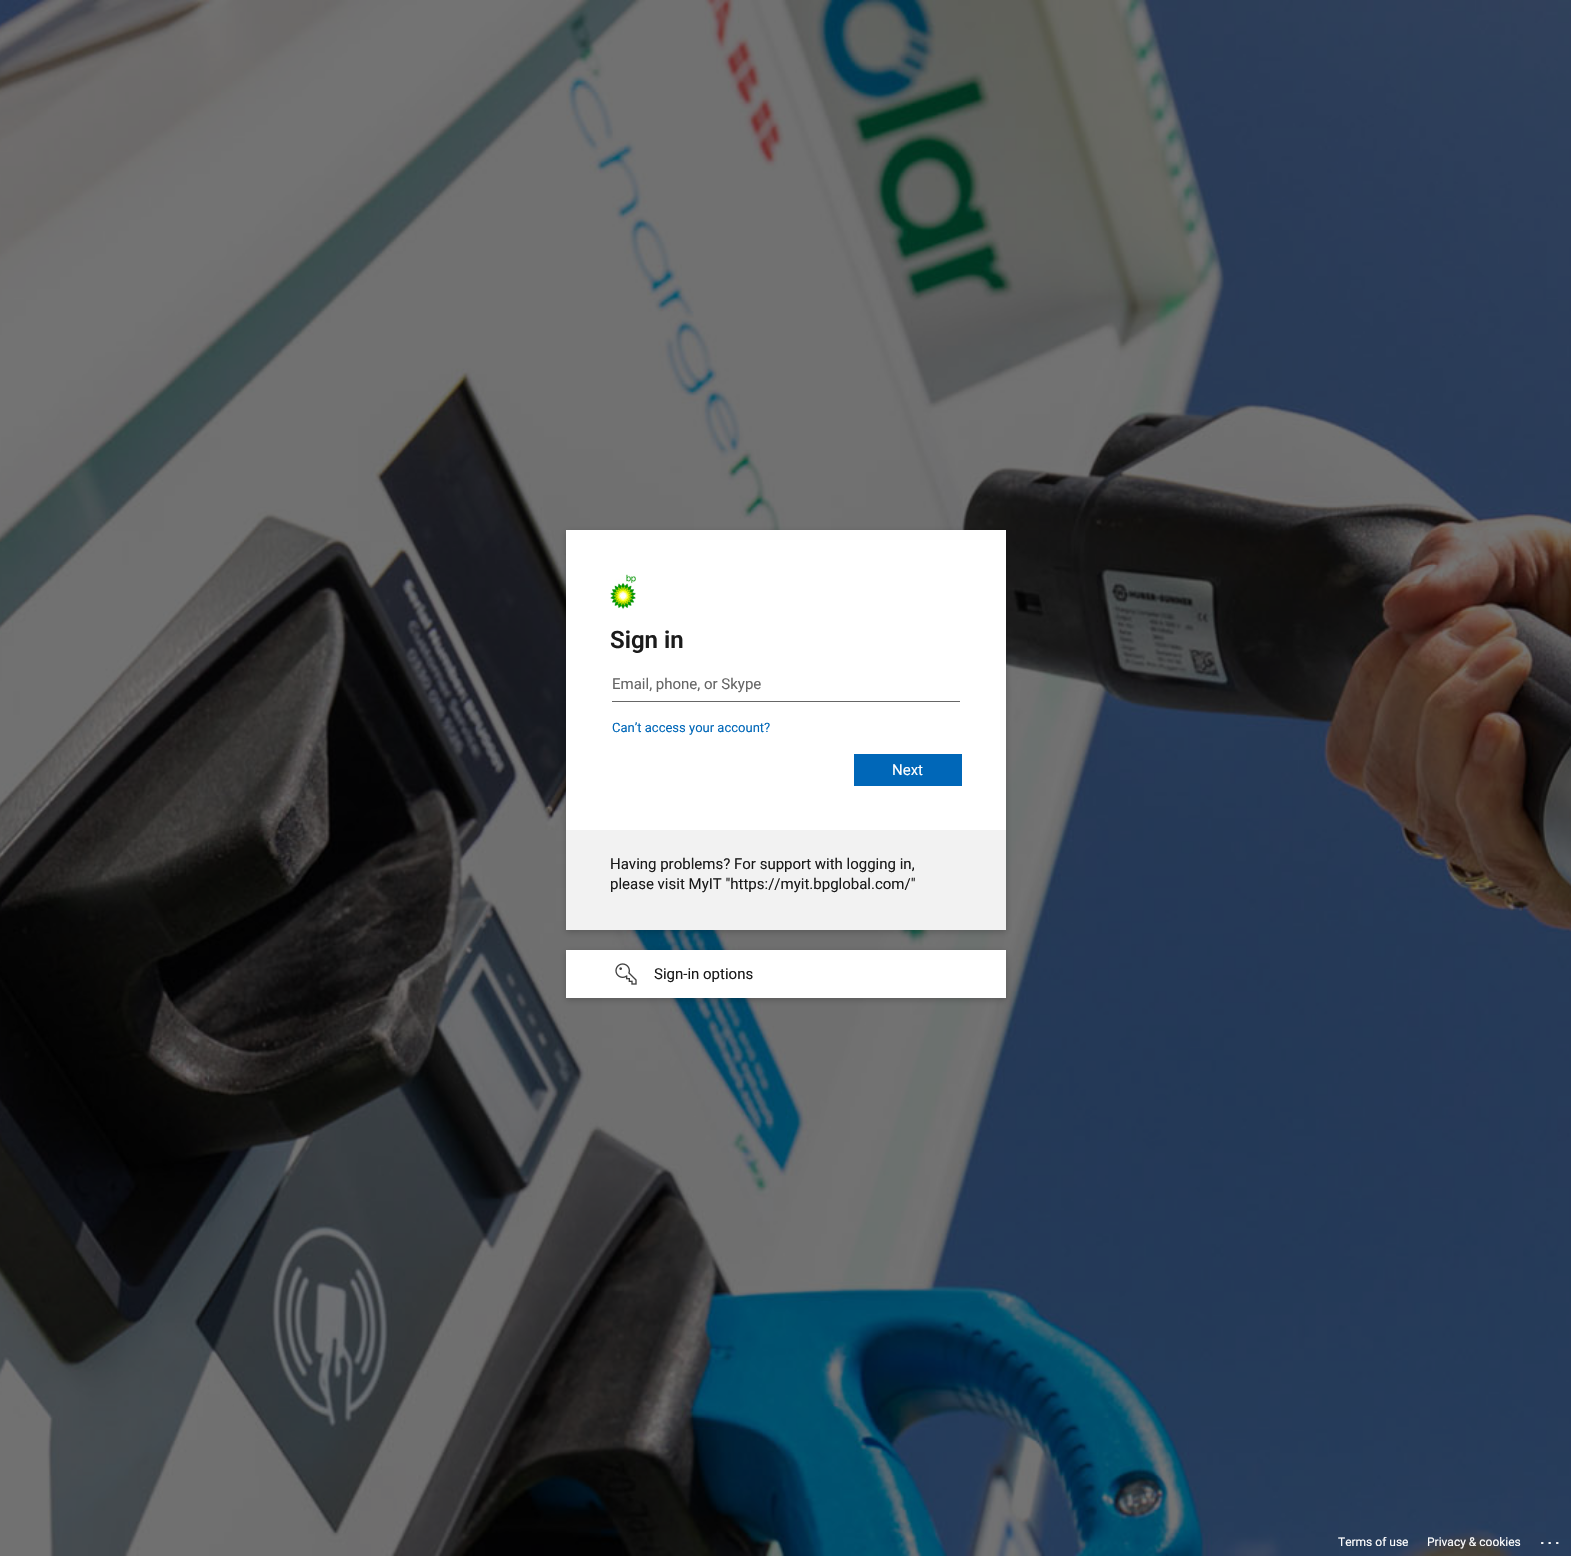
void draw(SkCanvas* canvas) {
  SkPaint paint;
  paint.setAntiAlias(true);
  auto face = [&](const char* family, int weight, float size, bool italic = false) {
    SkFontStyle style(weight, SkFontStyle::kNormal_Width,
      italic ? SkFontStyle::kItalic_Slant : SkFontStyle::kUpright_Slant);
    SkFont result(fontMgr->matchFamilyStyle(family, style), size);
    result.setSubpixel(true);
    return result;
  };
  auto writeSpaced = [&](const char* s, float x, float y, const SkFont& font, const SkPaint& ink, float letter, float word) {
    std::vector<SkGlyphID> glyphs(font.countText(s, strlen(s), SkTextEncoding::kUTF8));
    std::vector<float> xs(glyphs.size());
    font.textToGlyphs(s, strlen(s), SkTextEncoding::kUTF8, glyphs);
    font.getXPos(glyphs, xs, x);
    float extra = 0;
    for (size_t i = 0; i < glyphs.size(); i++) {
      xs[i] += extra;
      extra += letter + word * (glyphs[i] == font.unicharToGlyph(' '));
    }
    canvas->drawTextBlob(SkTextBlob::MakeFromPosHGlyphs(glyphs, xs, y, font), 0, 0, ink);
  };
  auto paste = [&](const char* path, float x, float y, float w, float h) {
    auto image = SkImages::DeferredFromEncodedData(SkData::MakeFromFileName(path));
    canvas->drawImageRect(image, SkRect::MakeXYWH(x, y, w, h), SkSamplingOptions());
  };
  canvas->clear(0xffffffff);
  paste("img/1.png", 0, 0, 1571, 1556);
  paint.setColor(0x33000000);
  paint.setMaskFilter(SkMaskFilter::MakeBlur(kNormal_SkBlurStyle, 3));
  canvas->drawRect(SkRect::MakeXYWH(566, 532, 440, 400), paint);
  paint.setMaskFilter(nullptr);
  paint.setColor(0xffffffff);
  canvas->drawRect(SkRect::MakeXYWH(566, 530, 440, 300), paint);
  paste("img/2.png", 610, 574, 26, 36);
  {
    const struct { float x, y, w, h; SkColor color; } items[] = {
      {612, 701, 348, 1, 0xff666666},
      {854, 754, 108, 32, 0xff0067b8},
      {566, 830, 440, 100, 0xfff2f2f2},
    };
    for (auto [x, y, w, h, color] : items) {
      paint.setColor(color);
      canvas->drawRect(SkRect::MakeXYWH(x, y, w, h), paint);
    }
  }
  paint.setColor(0x33000000);
  paint.setMaskFilter(SkMaskFilter::MakeBlur(kNormal_SkBlurStyle, 3));
  canvas->drawRect(SkRect::MakeXYWH(566, 952, 440, 48), paint);
  paint.setMaskFilter(nullptr);
  paint.setColor(0xffffffff);
  canvas->drawRect(SkRect::MakeXYWH(566, 950, 440, 48), paint);
  paste("img/3.png", 615, 963, 22, 22);
  auto f0 = face("Roboto", 600, 24);
  paint.setColor(0xff1b1b1b);
  canvas->drawString("Sign in", 610, 648, f0, paint);
  auto f1 = face("Roboto", 400, 15);
  paint.setColor(0xff666666);
  canvas->drawString("Email, phone, or Skype", 612, 689, f1, paint);
  auto f2 = face("Roboto", 400, 13);
  paint.setColor(0xff0067b8);
  canvas->drawString("Can’t access your account?", 612, 732, f2, paint);
  paint.setColor(0xffffffff);
  canvas->drawString("Next", 892, 775, f1, paint);
  paint.setColor(0xff1b1b1b);
  {
    const struct { const char* s; float x, y; } items[] = {
      {"Having problems? For support with logging in,", 610, 869},
      {"please visit MyIT \"https://myit.bpglobal.com/\"", 610, 889},
      {"Sign-in options", 654, 979},
    };
    for (auto [s, x, y] : items) {
      canvas->drawString(s, x, y, f1, paint);
    }
  }
  auto f3 = face("Roboto", 400, 12);
  paint.setColor(0xffffffff);
  canvas->drawString("Terms of use", 1338, 1546, f3, paint);
  canvas->drawString("Privacy & cookies", 1427, 1546, f3, paint);
  auto f4 = face("Roboto", 600, 16);
  writeSpaced("...", 1540, 1544, f4, paint, 3, 0);
}
